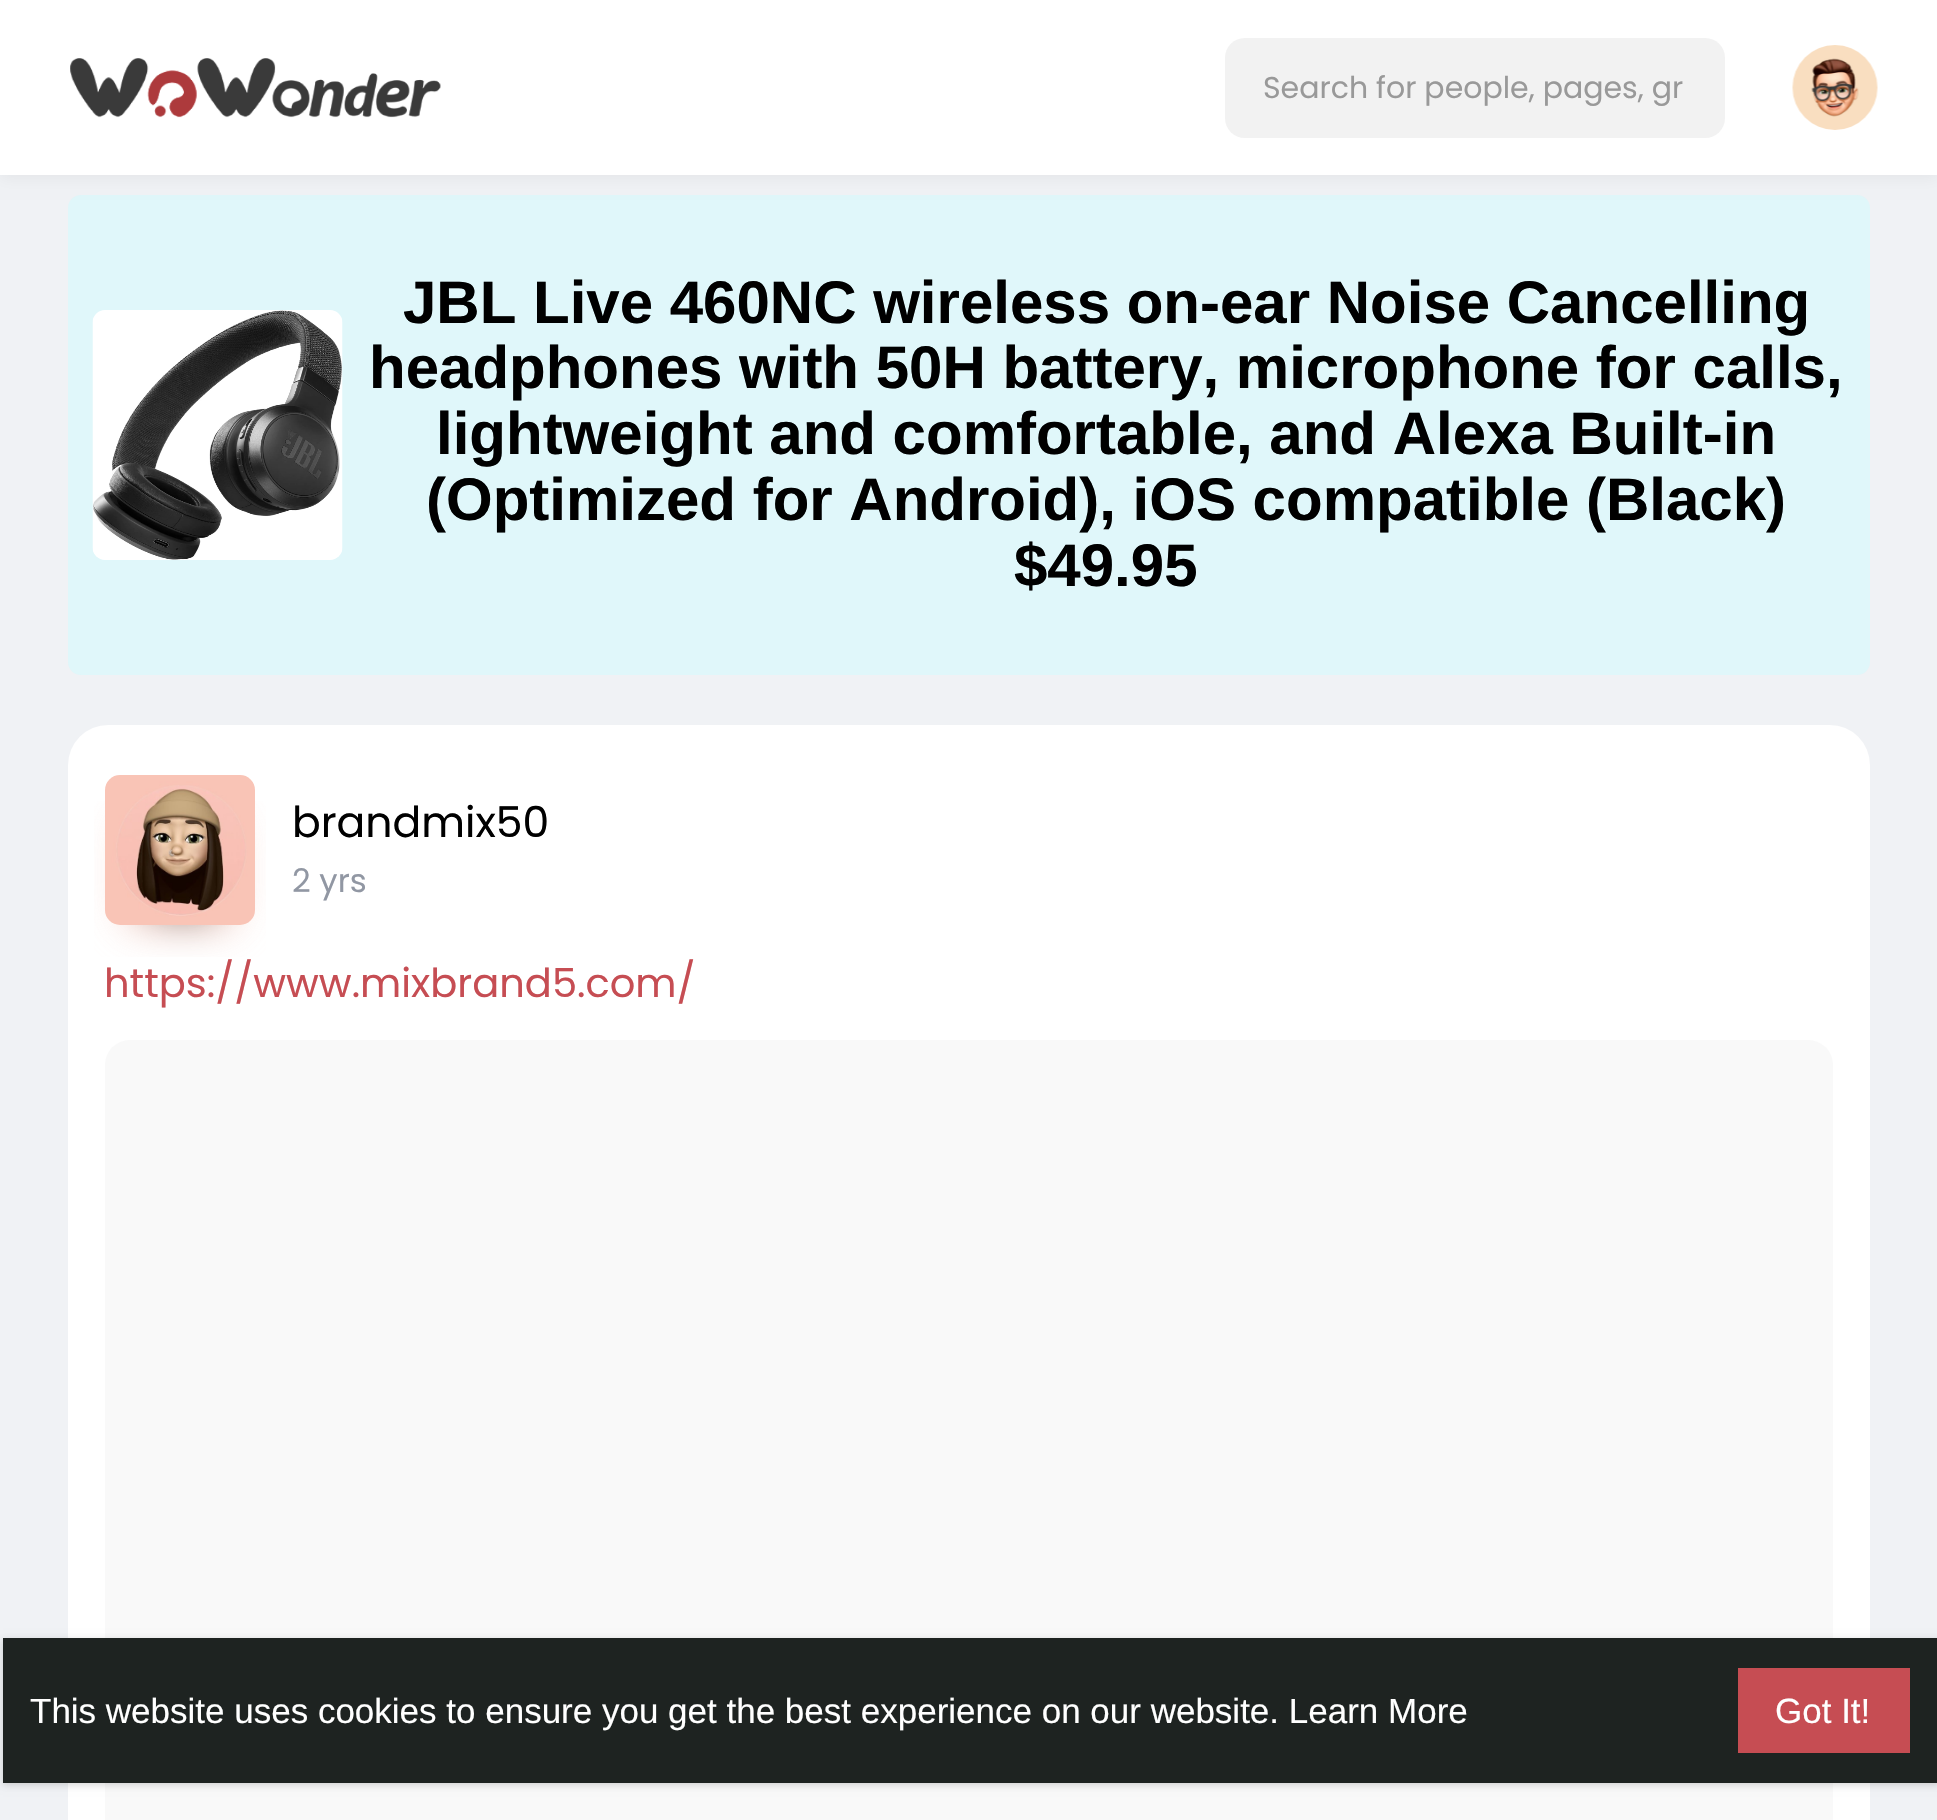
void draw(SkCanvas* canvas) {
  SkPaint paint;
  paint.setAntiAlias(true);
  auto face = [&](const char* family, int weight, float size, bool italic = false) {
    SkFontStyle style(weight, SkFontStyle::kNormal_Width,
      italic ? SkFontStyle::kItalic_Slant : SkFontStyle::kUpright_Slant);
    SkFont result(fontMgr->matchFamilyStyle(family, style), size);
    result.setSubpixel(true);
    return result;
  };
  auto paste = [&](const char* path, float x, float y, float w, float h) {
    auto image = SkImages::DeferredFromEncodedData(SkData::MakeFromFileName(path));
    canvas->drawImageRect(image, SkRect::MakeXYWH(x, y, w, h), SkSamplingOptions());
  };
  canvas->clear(0xfff0f2f5);
  paint.setColor(0xffe0f7fa);
  canvas->drawRoundRect(SkRect::MakeXYWH(68, 195, 1802, 480), 13, 13, paint);
  paint.setColor(0x0d000000);
  paint.setMaskFilter(SkMaskFilter::MakeBlur(kNormal_SkBlurStyle, 7.5f));
  canvas->drawRect(SkRect::MakeXYWH(0, 3, 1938, 175), paint);
  paint.setMaskFilter(nullptr);
  paint.setColor(0xffffffff);
  canvas->drawRect(SkRect::MakeXYWH(0, 0, 1937, 175), paint);
  paste("img/1.png", 70, 58, 371, 60);
  paint.setColor(0xfff2f2f2);
  canvas->drawRoundRect(SkRect::MakeXYWH(1225, 38, 500, 100), 20, 20, paint);
  paste("img/2.png", 1792, 45, 86, 85);
  paste("img/3.png", 92, 310, 251, 250);
  paint.setColor(0xffffffff);
  canvas->drawRoundRect(SkRect::MakeXYWH(68, 725, 1802, 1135), 40, 40, paint);
  paste("img/5.png", 94, 801, 172, 156);
  paste("img/4.png", 105, 775, 150, 150);
  paint.setColor(0xfff9f9f9);
  canvas->drawRoundRect(SkRect::MakeXYWH(105, 1040, 1728, 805), 25, 25, paint);
  paint.setColor(0x0f000000);
  paint.setMaskFilter(SkMaskFilter::MakeBlur(kNormal_SkBlurStyle, 2.5f));
  canvas->drawRect(SkRect::MakeXYWH(3, 1640, 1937, 145), paint);
  paint.setMaskFilter(nullptr);
  paint.setColor(0x1a000000);
  paint.setMaskFilter(SkMaskFilter::MakeBlur(kNormal_SkBlurStyle, 4));
  canvas->drawRect(SkRect::MakeXYWH(3, 1640, 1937, 145), paint);
  paint.setMaskFilter(nullptr);
  paint.setColor(0xff1e2321);
  canvas->drawRect(SkRect::MakeXYWH(3, 1638, 1934, 145), paint);
  paint.setColor(0xffc64d53);
  canvas->drawRect(SkRect::MakeXYWH(1738, 1668, 172, 85), paint);
  auto f0 = face("Poppins", 400, 30);
  paint.setColor(0xff999999);
  canvas->drawString("Search for people, pages, gr", 1263, 98, f0, paint);
  auto f1 = face("Liberation Sans", 700, 60);
  paint.setColor(0xff000000);
  {
    const struct { const char* s; float x, y; } items[] = {
      {"JBL Live 460NC wireless on-ear Noise Cancelling", 403, 323},
      {"headphones with 50H battery, microphone for calls,", 369, 388},
      {"lightweight and comfortable, and Alexa Built-in", 436, 454},
      {"(Optimized for Android), iOS compatible (Black)", 426, 520},
      {"$49.95", 1014, 586},
    };
    for (auto [s, x, y] : items) {
      canvas->drawString(s, x, y, f1, paint);
    }
  }
  auto f2 = face("Poppins", 400, 42.5f);
  canvas->drawString("brandmix50", 292, 837, f2, paint);
  auto f3 = face("Poppins", 400, 32.5f);
  paint.setColor(0xff9197a3);
  canvas->drawString("2 yrs", 292, 892, f3, paint);
  auto f4 = face("Poppins", 400, 40);
  paint.setColor(0xffc64d53);
  canvas->drawString("https://www.mixbrand5.com/", 104, 997, f4, paint);
  auto f5 = face("Liberation Sans", 400, 35);
  paint.setColor(0xffffffff);
  canvas->drawString("This website uses cookies to ensure you get the best experience on our website. Learn More", 30, 1723, f5, paint);
  canvas->drawString("Got It!", 1775, 1723, f5, paint);
}
